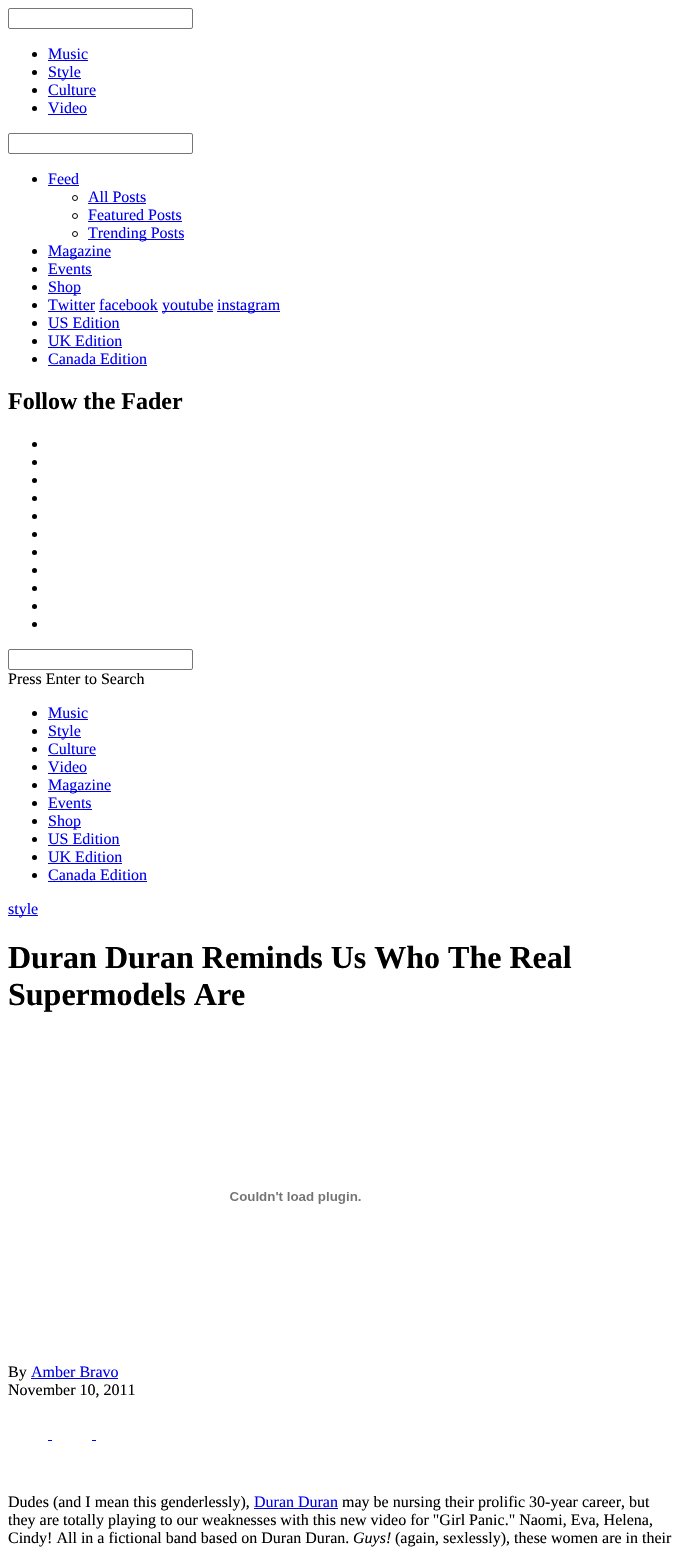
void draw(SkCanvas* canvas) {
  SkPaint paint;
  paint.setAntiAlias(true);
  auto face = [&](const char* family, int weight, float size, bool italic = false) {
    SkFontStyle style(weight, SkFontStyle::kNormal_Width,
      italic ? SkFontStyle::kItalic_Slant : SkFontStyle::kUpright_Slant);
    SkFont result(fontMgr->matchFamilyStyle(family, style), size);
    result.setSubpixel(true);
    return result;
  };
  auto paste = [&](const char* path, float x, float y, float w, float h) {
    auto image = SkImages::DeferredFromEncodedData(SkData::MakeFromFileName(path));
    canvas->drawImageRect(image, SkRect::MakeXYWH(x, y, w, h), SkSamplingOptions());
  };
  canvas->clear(0xffffffff);
  paint.setStroke(true);
  paint.setStrokeWidth(1);
  paint.setColor(0xff767676);
  canvas->drawRoundRect(SkRect::MakeXYWH(8.5f, 8.5f, 184, 20), 1.5f, 1.5f, paint);
  paint.setStroke(false);
  paint.setColor(0xff000000);
  canvas->drawCircle(34.5f, 54.5f, 2.5f, paint);
  paint.setColor(0xff0000ee);
  canvas->drawRect(SkRect::MakeXYWH(48, 60, 40, 1), paint);
  paint.setColor(0xff000000);
  canvas->drawCircle(34.5f, 72.5f, 2.5f, paint);
  paint.setColor(0xff0000ee);
  canvas->drawRect(SkRect::MakeXYWH(48, 78, 33, 1), paint);
  paint.setColor(0xff000000);
  canvas->drawCircle(34.5f, 90.5f, 2.5f, paint);
  paint.setColor(0xff0000ee);
  canvas->drawRect(SkRect::MakeXYWH(48, 96, 48, 1), paint);
  paint.setColor(0xff000000);
  canvas->drawCircle(34.5f, 108.5f, 2.5f, paint);
  paint.setColor(0xff0000ee);
  canvas->drawRect(SkRect::MakeXYWH(48, 114, 39, 1), paint);
  paint.setStroke(true);
  paint.setColor(0xff767676);
  canvas->drawRoundRect(SkRect::MakeXYWH(8.5f, 133.5f, 184, 20), 1.5f, 1.5f, paint);
  paint.setStroke(false);
  paint.setColor(0xff000000);
  canvas->drawCircle(34.5f, 179.5f, 2.5f, paint);
  paint.setColor(0xff0000ee);
  canvas->drawRect(SkRect::MakeXYWH(48, 185, 31, 1), paint);
  paint.setStroke(true);
  paint.setColor(0xff000000);
  canvas->drawCircle(75, 198, 2.5f, paint);
  paint.setStroke(false);
  paint.setColor(0xff0000ee);
  canvas->drawRect(SkRect::MakeXYWH(88, 203, 58, 1), paint);
  paint.setStroke(true);
  paint.setColor(0xff000000);
  canvas->drawCircle(75, 216, 2.5f, paint);
  paint.setStroke(false);
  paint.setColor(0xff0000ee);
  canvas->drawRect(SkRect::MakeXYWH(88, 221, 94, 1), paint);
  paint.setStroke(true);
  paint.setColor(0xff000000);
  canvas->drawCircle(75, 234, 2.5f, paint);
  paint.setStroke(false);
  paint.setColor(0xff0000ee);
  canvas->drawRect(SkRect::MakeXYWH(88, 239, 96, 1), paint);
  paint.setColor(0xff000000);
  canvas->drawCircle(34.5f, 251.5f, 2.5f, paint);
  paint.setColor(0xff0000ee);
  canvas->drawRect(SkRect::MakeXYWH(48, 257, 63, 1), paint);
  paint.setColor(0xff000000);
  canvas->drawCircle(34.5f, 269.5f, 2.5f, paint);
  paint.setColor(0xff0000ee);
  canvas->drawRect(SkRect::MakeXYWH(48, 275, 44, 1), paint);
  paint.setColor(0xff000000);
  canvas->drawCircle(34.5f, 287.5f, 2.5f, paint);
  paint.setColor(0xff0000ee);
  canvas->drawRect(SkRect::MakeXYWH(48, 293, 33, 1), paint);
  paint.setColor(0xff000000);
  canvas->drawCircle(34.5f, 305.5f, 2.5f, paint);
  {
    const struct { float x, y, w, h; SkColor color; } items[] = {
      {48, 311, 47, 1, 0xff0000ee},
      {162, 311, 51, 1, 0xff0000ee},
      {217, 311, 63, 1, 0xff0000ee},
      {99, 311, 59, 1, 0xff0000ee},
    };
    for (auto [x, y, w, h, color] : items) {
      paint.setColor(color);
      canvas->drawRect(SkRect::MakeXYWH(x, y, w, h), paint);
    }
  }
  paint.setColor(0xff000000);
  canvas->drawCircle(34.5f, 323.5f, 2.5f, paint);
  paint.setColor(0xff0000ee);
  canvas->drawRect(SkRect::MakeXYWH(48, 329, 72, 1), paint);
  paint.setColor(0xff000000);
  canvas->drawCircle(34.5f, 341.5f, 2.5f, paint);
  paint.setColor(0xff0000ee);
  canvas->drawRect(SkRect::MakeXYWH(48, 347, 74, 1), paint);
  paint.setColor(0xff000000);
  canvas->drawCircle(34.5f, 359.5f, 2.5f, paint);
  paint.setColor(0xff0000ee);
  canvas->drawRect(SkRect::MakeXYWH(48, 365, 99, 1), paint);
  paint.setColor(0xff000000);
  canvas->drawCircle(34.5f, 444.5f, 2.5f, paint);
  canvas->drawCircle(34.5f, 462.5f, 2.5f, paint);
  canvas->drawCircle(34.5f, 480.5f, 2.5f, paint);
  canvas->drawCircle(34.5f, 498.5f, 2.5f, paint);
  canvas->drawCircle(34.5f, 516.5f, 2.5f, paint);
  canvas->drawCircle(34.5f, 534.5f, 2.5f, paint);
  canvas->drawCircle(34.5f, 552.5f, 2.5f, paint);
  canvas->drawCircle(34.5f, 570.5f, 2.5f, paint);
  canvas->drawCircle(34.5f, 588.5f, 2.5f, paint);
  canvas->drawCircle(34.5f, 606.5f, 2.5f, paint);
  canvas->drawCircle(34.5f, 624.5f, 2.5f, paint);
  paint.setStroke(true);
  paint.setColor(0xff767676);
  canvas->drawRoundRect(SkRect::MakeXYWH(8.5f, 649.5f, 184, 20), 1.5f, 1.5f, paint);
  paint.setStroke(false);
  paint.setColor(0xff000000);
  canvas->drawCircle(34.5f, 713.5f, 2.5f, paint);
  paint.setColor(0xff0000ee);
  canvas->drawRect(SkRect::MakeXYWH(48, 719, 40, 1), paint);
  paint.setColor(0xff000000);
  canvas->drawCircle(34.5f, 731.5f, 2.5f, paint);
  paint.setColor(0xff0000ee);
  canvas->drawRect(SkRect::MakeXYWH(48, 737, 33, 1), paint);
  paint.setColor(0xff000000);
  canvas->drawCircle(34.5f, 749.5f, 2.5f, paint);
  paint.setColor(0xff0000ee);
  canvas->drawRect(SkRect::MakeXYWH(48, 755, 48, 1), paint);
  paint.setColor(0xff000000);
  canvas->drawCircle(34.5f, 767.5f, 2.5f, paint);
  paint.setColor(0xff0000ee);
  canvas->drawRect(SkRect::MakeXYWH(48, 773, 39, 1), paint);
  paint.setColor(0xff000000);
  canvas->drawCircle(34.5f, 785.5f, 2.5f, paint);
  paint.setColor(0xff0000ee);
  canvas->drawRect(SkRect::MakeXYWH(48, 791, 63, 1), paint);
  paint.setColor(0xff000000);
  canvas->drawCircle(34.5f, 803.5f, 2.5f, paint);
  paint.setColor(0xff0000ee);
  canvas->drawRect(SkRect::MakeXYWH(48, 809, 44, 1), paint);
  paint.setColor(0xff000000);
  canvas->drawCircle(34.5f, 821.5f, 2.5f, paint);
  paint.setColor(0xff0000ee);
  canvas->drawRect(SkRect::MakeXYWH(48, 827, 33, 1), paint);
  paint.setColor(0xff000000);
  canvas->drawCircle(34.5f, 839.5f, 2.5f, paint);
  paint.setColor(0xff0000ee);
  canvas->drawRect(SkRect::MakeXYWH(48, 845, 72, 1), paint);
  paint.setColor(0xff000000);
  canvas->drawCircle(34.5f, 857.5f, 2.5f, paint);
  paint.setColor(0xff0000ee);
  canvas->drawRect(SkRect::MakeXYWH(48, 863, 74, 1), paint);
  paint.setColor(0xff000000);
  canvas->drawCircle(34.5f, 875.5f, 2.5f, paint);
  paint.setColor(0xff0000ee);
  canvas->drawRect(SkRect::MakeXYWH(48, 881, 99, 1), paint);
  canvas->drawRect(SkRect::MakeXYWH(8, 915, 30, 1), paint);
  paste("img/1.png", 230, 1192, 131, 12);
  {
    const struct { float x, y, w, h; SkColor color; } items[] = {
      {31, 1378, 87, 1, 0xff0000ee},
      {48, 1440, 4, 1, 0xff0000ee},
      {92, 1440, 4, 1, 0xff0000ee},
      {254, 1508, 84, 1, 0xff0000ee},
    };
    for (auto [x, y, w, h, color] : items) {
      paint.setColor(color);
      canvas->drawRect(SkRect::MakeXYWH(x, y, w, h), paint);
    }
  }
  auto f0 = face("Liberation Serif", 400, 16);
  {
    const struct { const char* s; float x, y; } items[] = {
      {"Music", 48, 59},
      {"Style", 48, 77},
      {"Culture", 48, 95},
      {"Video", 48, 113},
      {"Feed", 48, 184},
      {"All Posts", 88, 202},
      {"Featured Posts", 88, 220},
      {"Trending Posts", 88, 238},
      {"Magazine", 48, 256},
      {"Events", 48, 274},
      {"Shop", 48, 292},
      {"Twitter facebook", 48, 310},
      {"youtube", 162, 310},
      {"instagram", 217, 310},
      {"US Edition", 48, 328},
      {"UK Edition", 48, 346},
      {"Canada Edition", 48, 364},
    };
    for (auto [s, x, y] : items) {
      canvas->drawString(s, x, y, f0, paint);
    }
  }
  auto f1 = face("Liberation Serif", 700, 24);
  paint.setColor(0xff000000);
  canvas->drawString("Follow the Fader", 8, 409, f1, paint);
  canvas->drawString("Press Enter to Search", 8, 684, f0, paint);
  paint.setColor(0xff0000ee);
  {
    const struct { const char* s; float x, y; } items[] = {
      {"Music", 48, 718},
      {"Style", 48, 736},
      {"Culture", 48, 754},
      {"Video", 48, 772},
      {"Magazine", 48, 790},
      {"Events", 48, 808},
      {"Shop", 48, 826},
      {"US Edition", 48, 844},
      {"UK Edition", 48, 862},
      {"Canada Edition", 48, 880},
      {"style", 8, 914},
    };
    for (auto [s, x, y] : items) {
      canvas->drawString(s, x, y, f0, paint);
    }
  }
  auto f2 = face("Liberation Serif", 700, 32);
  paint.setColor(0xff000000);
  canvas->drawString("Duran Duran Reminds Us Who The Real", 8, 968, f2, paint);
  canvas->drawString("Supermodels Are", 8, 1005, f2, paint);
  canvas->drawString("By", 8, 1377, f0, paint);
  paint.setColor(0xff0000ee);
  canvas->drawString("Amber Bravo", 31, 1377, f0, paint);
  paint.setColor(0xff000000);
  canvas->drawString("November 10, 2011", 8, 1395, f0, paint);
  canvas->drawString("Dudes (and I mean this genderlessly),", 8, 1507, f0, paint);
  paint.setColor(0xff0000ee);
  canvas->drawString("Duran Duran", 254, 1507, f0, paint);
  paint.setColor(0xff000000);
  {
    const struct { const char* s; float x, y; } items[] = {
      {"may be nursing their prolific 30-year career, but", 342, 1507},
      {"they are totally playing to our weaknesses with this new video for \"Girl Panic.\" Naomi, Eva, Helena,", 8, 1525},
      {"Cindy! All in a fictional band based on Duran Duran.", 8, 1543},
    };
    for (auto [s, x, y] : items) {
      canvas->drawString(s, x, y, f0, paint);
    }
  }
  auto f3 = face("Liberation Serif", 400, 16, true);
  canvas->drawString("Guys!", 353, 1543, f3, paint);
  canvas->drawString("(again, sexlessly), these women are in their", 395, 1543, f0, paint);
}
